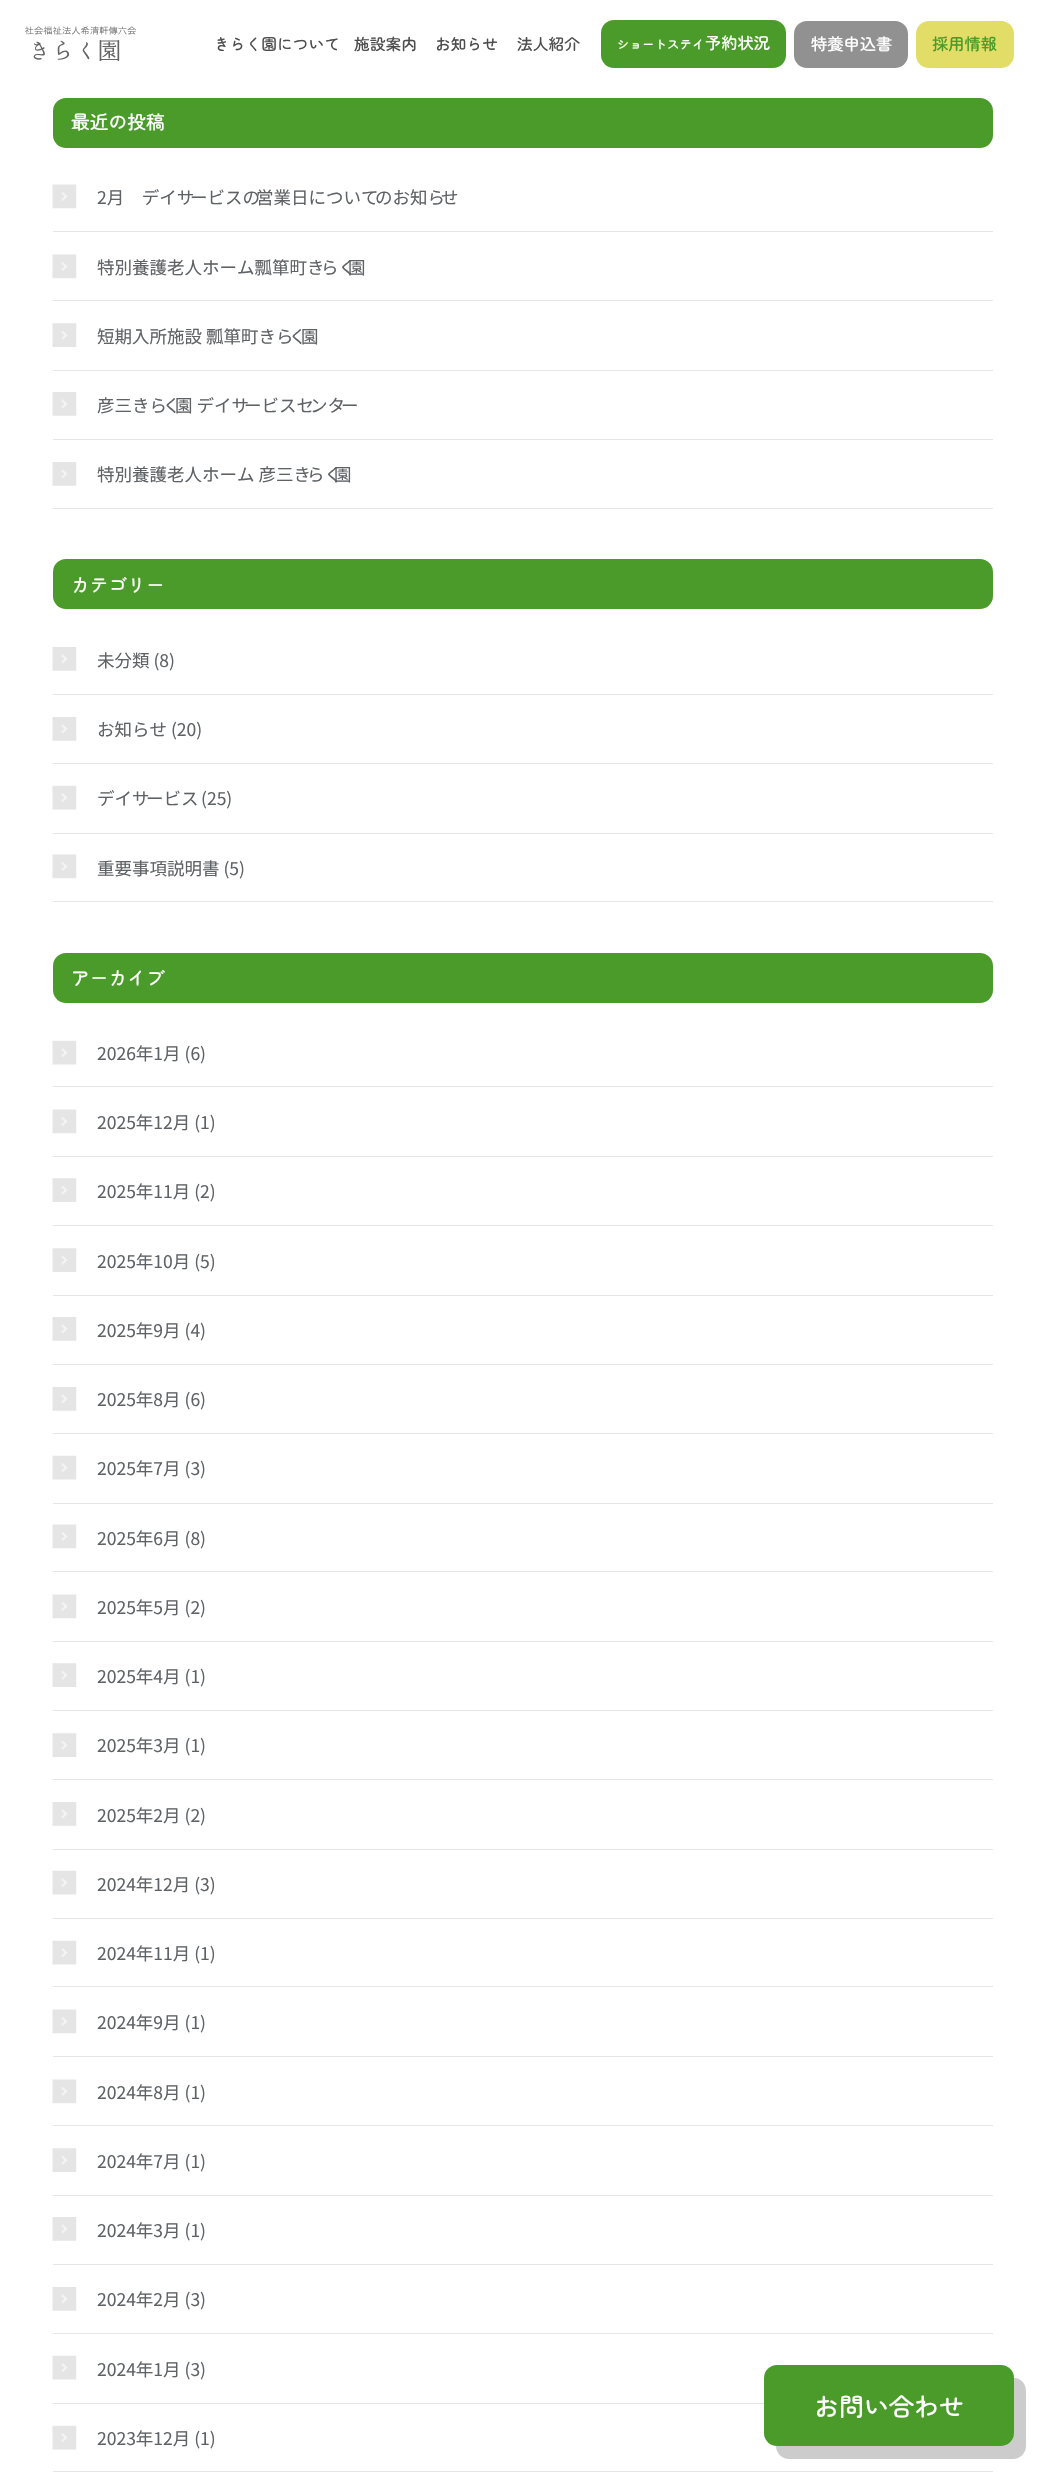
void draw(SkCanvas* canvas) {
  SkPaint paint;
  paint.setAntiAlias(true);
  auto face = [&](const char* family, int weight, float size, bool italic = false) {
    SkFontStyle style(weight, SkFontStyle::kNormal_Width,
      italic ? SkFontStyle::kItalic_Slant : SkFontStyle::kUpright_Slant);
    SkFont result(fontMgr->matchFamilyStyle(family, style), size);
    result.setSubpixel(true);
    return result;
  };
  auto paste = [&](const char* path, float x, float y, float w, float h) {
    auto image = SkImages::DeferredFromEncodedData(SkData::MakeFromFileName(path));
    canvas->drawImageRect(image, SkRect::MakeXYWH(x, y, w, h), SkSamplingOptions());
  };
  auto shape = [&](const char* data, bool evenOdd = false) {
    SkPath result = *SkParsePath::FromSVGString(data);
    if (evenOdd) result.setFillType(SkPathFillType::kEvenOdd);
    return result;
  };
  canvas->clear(0xffffffff);
  paste("img/1.png", 25, 26, 111, 35);
  paint.setColor(0xff4a9b2a);
  canvas->drawRoundRect(SkRect::MakeXYWH(601, 20, 185, 48), 13, 13, paint);
  paint.setColor(0xff919191);
  canvas->drawRoundRect(SkRect::MakeXYWH(794, 21, 114, 47), 13, 13, paint);
  paint.setColor(0xffe2dd67);
  canvas->drawRoundRect(SkRect::MakeXYWH(916, 21, 98, 47), 13, 13, paint);
  paint.setColor(0xff4b9b2b);
  canvas->drawRoundRect(SkRect::MakeXYWH(53, 98, 940, 50), 13, 13, paint);
  paint.setColor(0xffe5e5e5);
  canvas->drawRect(SkRect::MakeXYWH(53, 231, 940, 1), paint);
  paste("img/2.png", 52, 184, 25, 25);
  canvas->drawRect(SkRect::MakeXYWH(53, 300, 940, 1), paint);
  paste("img/3.png", 52, 254, 25, 25);
  canvas->drawRect(SkRect::MakeXYWH(53, 370, 940, 1), paint);
  paste("img/4.png", 52, 323, 25, 24);
  canvas->drawRect(SkRect::MakeXYWH(53, 439, 940, 1), paint);
  paste("img/5.png", 52, 392, 25, 24);
  canvas->drawRect(SkRect::MakeXYWH(53, 508, 940, 1), paint);
  paste("img/5.png", 52, 462, 25, 24);
  paint.setColor(0xff4b9b2b);
  canvas->drawRoundRect(SkRect::MakeXYWH(53, 559, 940, 50), 13, 13, paint);
  paint.setColor(0xffe5e5e5);
  canvas->drawRect(SkRect::MakeXYWH(53, 694, 940, 1), paint);
  paste("img/6.png", 52, 647, 25, 24);
  canvas->drawRect(SkRect::MakeXYWH(53, 763, 940, 1), paint);
  paste("img/5.png", 52, 717, 25, 24);
  canvas->drawRect(SkRect::MakeXYWH(53, 833, 940, 1), paint);
  paste("img/7.png", 52, 785, 25, 25);
  canvas->drawRect(SkRect::MakeXYWH(53, 901, 940, 1), paint);
  paste("img/2.png", 52, 854, 25, 25);
  paint.setColor(0xff4b9b2b);
  canvas->drawRoundRect(SkRect::MakeXYWH(53, 953, 940, 50), 13, 13, paint);
  paint.setColor(0xffe5e5e5);
  canvas->drawRect(SkRect::MakeXYWH(53, 1086, 940, 1), paint);
  paste("img/8.png", 52, 1040, 25, 25);
  canvas->drawRect(SkRect::MakeXYWH(53, 1156, 940, 1), paint);
  paste("img/2.png", 52, 1109, 25, 25);
  canvas->drawRect(SkRect::MakeXYWH(53, 1225, 940, 1), paint);
  paste("img/4.png", 52, 1178, 25, 24);
  canvas->drawRect(SkRect::MakeXYWH(53, 1295, 940, 1), paint);
  paste("img/4.png", 52, 1248, 25, 24);
  canvas->drawRect(SkRect::MakeXYWH(53, 1364, 940, 1), paint);
  paste("img/5.png", 52, 1317, 25, 24);
  canvas->drawRect(SkRect::MakeXYWH(53, 1433, 940, 1), paint);
  paste("img/5.png", 52, 1387, 25, 24);
  canvas->drawRect(SkRect::MakeXYWH(53, 1503, 940, 1), paint);
  paste("img/7.png", 52, 1455, 25, 25);
  canvas->drawRect(SkRect::MakeXYWH(53, 1571, 940, 1), paint);
  paste("img/3.png", 52, 1524, 25, 25);
  canvas->drawRect(SkRect::MakeXYWH(53, 1641, 940, 1), paint);
  paste("img/2.png", 52, 1594, 25, 25);
  canvas->drawRect(SkRect::MakeXYWH(53, 1710, 940, 1), paint);
  paste("img/4.png", 52, 1663, 25, 24);
  canvas->drawRect(SkRect::MakeXYWH(53, 1779, 940, 1), paint);
  paste("img/4.png", 52, 1733, 25, 24);
  canvas->drawRect(SkRect::MakeXYWH(53, 1849, 940, 1), paint);
  paste("img/5.png", 52, 1802, 25, 24);
  canvas->drawRect(SkRect::MakeXYWH(53, 1918, 940, 1), paint);
  paste("img/7.png", 52, 1870, 25, 25);
  canvas->drawRect(SkRect::MakeXYWH(53, 1986, 940, 1), paint);
  paste("img/7.png", 52, 1940, 25, 25);
  canvas->drawRect(SkRect::MakeXYWH(53, 2056, 940, 1), paint);
  paste("img/2.png", 52, 2009, 25, 25);
  canvas->drawRect(SkRect::MakeXYWH(53, 2125, 940, 1), paint);
  paste("img/2.png", 52, 2079, 25, 25);
  canvas->drawRect(SkRect::MakeXYWH(53, 2195, 940, 1), paint);
  paste("img/4.png", 52, 2148, 25, 24);
  canvas->drawRect(SkRect::MakeXYWH(53, 2264, 940, 1), paint);
  paste("img/5.png", 52, 2217, 25, 24);
  canvas->drawRect(SkRect::MakeXYWH(53, 2333, 940, 1), paint);
  paste("img/5.png", 52, 2287, 25, 24);
  canvas->drawRect(SkRect::MakeXYWH(53, 2403, 711, 1), paint);
  paste("img/7.png", 52, 2355, 25, 25);
  canvas->drawRect(SkRect::MakeXYWH(53, 2471, 940, 1), paint);
  paste("img/7.png", 52, 2425, 25, 25);
  paint.setColor(0xffcccccc);
  canvas->drawPath(shape("M776 2446C776 2453 782 2459 789 2459H1013C1020 2459 1026 2453 1026 2446V2391C1026 2384 1021 2378 1014 2378V2424C1014 2434 1014 2446 1001 2446Z"), paint);
  paint.setColor(0xff4a9b2a);
  canvas->drawRoundRect(SkRect::MakeXYWH(764, 2365, 250, 81), 13, 13, paint);
  auto f0 = face("Zen Maru Gothic", 500, 15.75f);
  paint.setColor(0xff4d4d4d);
  {
    const struct { const char* s; float x, y; } items[] = {
      {"きらく園について", 214, 50},
      {"施設案内", 354, 50},
      {"お知らせ", 435, 50},
      {"法人紹介", 517, 50},
    };
    for (auto [s, x, y] : items) {
      canvas->drawString(s, x, y, f0, paint);
    }
  }
  auto f1 = face("Zen Maru Gothic", 500, 12.5f);
  paint.setColor(0xffffffff);
  canvas->drawString("ショートステイ", 617, 49, f1, paint);
  auto f2 = face("Zen Maru Gothic", 500, 16.25f);
  canvas->drawString("予約状況", 705, 49, f2, paint);
  canvas->drawString("特養申込書", 811, 50, f2, paint);
  paint.setColor(0xff4a9b2a);
  canvas->drawString("採用情報", 932, 50, f2, paint);
  auto f3 = face("Zen Maru Gothic", 500, 18.75f);
  paint.setColor(0xffffffff);
  canvas->drawString("最近の投稿", 71, 129, f3, paint);
  auto f4 = face("Noto Sans JP", 400, 17.5f);
  paint.setColor(0xff5e6265);
  {
    const struct { const char* s; float x, y; } items[] = {
      {"2月　デイサ", 97, 204},
      {"ービスの", 190, 204},
      {"営業日について", 256, 204},
      {"のお知ら", 375, 204},
      {"せ", 441, 204},
      {"特別養護老人ホーム瓢箪町き", 97, 274},
      {"らく", 321, 274},
      {"園", 348, 274},
      {"短期入所施設 瓢箪町きら", 97, 343},
      {"く", 289, 343},
      {"園", 301, 343},
      {"彦三きら", 97, 412},
      {"く", 163, 412},
      {"園 デイサ", 175, 412},
      {"ービスセ", 244, 412},
      {"ンタ", 310, 412},
      {"ー", 341, 412},
      {"特別養護老人ホーム 彦三き", 97, 481},
      {"らく", 307, 481},
      {"園", 334, 481},
    };
    for (auto [s, x, y] : items) {
      canvas->drawString(s, x, y, f4, paint);
    }
  }
  paint.setColor(0xffffffff);
  canvas->drawString("カテゴリー", 71, 592, f3, paint);
  paint.setColor(0xff5e6265);
  {
    const struct { const char* s; float x, y; } items[] = {
      {"未分類 (8)", 97, 667},
      {"お知らせ (20)", 97, 736},
      {"デイサ", 97, 805},
      {"ービス", 146, 805},
      {"(25)", 201, 805},
      {"重要事項説明書 (5)", 97, 875},
    };
    for (auto [s, x, y] : items) {
      canvas->drawString(s, x, y, f4, paint);
    }
  }
  paint.setColor(0xffffffff);
  canvas->drawString("アーカイブ", 71, 985, f3, paint);
  paint.setColor(0xff5e6265);
  {
    const struct { const char* s; float x, y; } items[] = {
      {"2026年1月 (6)", 97, 1060},
      {"2025年12月 (1)", 97, 1129},
      {"2025年11月 (2)", 97, 1198},
      {"2025年10月 (5)", 97, 1268},
      {"2025年9月 (4)", 97, 1337},
      {"2025年8月 (6)", 97, 1406},
      {"2025年7月 (3)", 97, 1475},
      {"2025年6月 (8)", 97, 1545},
      {"2025年5月 (2)", 97, 1614},
      {"2025年4月 (1)", 97, 1683},
      {"2025年3月 (1)", 97, 1752},
      {"2025年2月 (2)", 97, 1822},
      {"2024年12月 (3)", 97, 1891},
      {"2024年11月 (1)", 97, 1960},
      {"2024年9月 (1)", 97, 2029},
      {"2024年8月 (1)", 97, 2099},
      {"2024年7月 (1)", 97, 2168},
      {"2024年3月 (1)", 97, 2237},
      {"2024年2月 (3)", 97, 2306},
      {"2024年1月 (3)", 97, 2376},
      {"2023年12月 (1)", 97, 2445},
    };
    for (auto [s, x, y] : items) {
      canvas->drawString(s, x, y, f4, paint);
    }
  }
  auto f5 = face("Zen Maru Gothic", 500, 25);
  paint.setColor(0xffffffff);
  canvas->drawString("お問い合わせ", 814, 2416, f5, paint);
}
